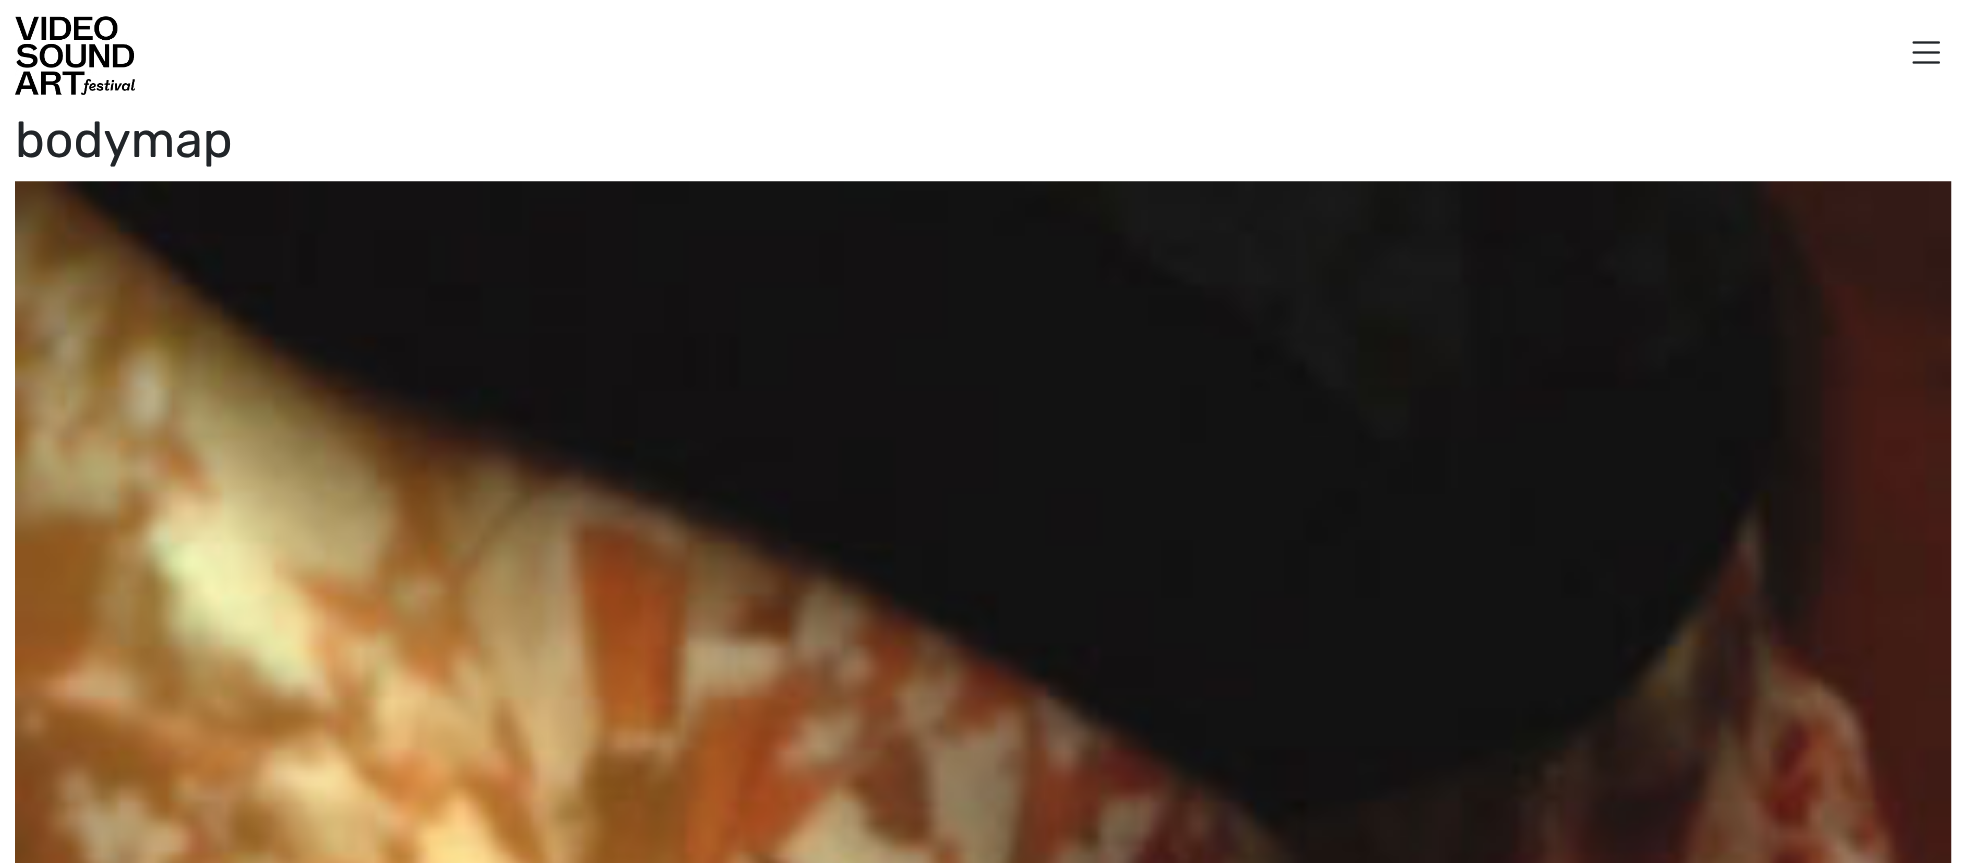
void draw(SkCanvas* canvas) {
  SkPaint paint;
  paint.setAntiAlias(true);
  auto face = [&](const char* family, int weight, float size, bool italic = false) {
    SkFontStyle style(weight, SkFontStyle::kNormal_Width,
      italic ? SkFontStyle::kItalic_Slant : SkFontStyle::kUpright_Slant);
    SkFont result(fontMgr->matchFamilyStyle(family, style), size);
    result.setSubpixel(true);
    return result;
  };
  auto paste = [&](const char* path, float x, float y, float w, float h) {
    auto image = SkImages::DeferredFromEncodedData(SkData::MakeFromFileName(path));
    canvas->drawImageRect(image, SkRect::MakeXYWH(x, y, w, h), SkSamplingOptions());
  };
  canvas->clear(0xffffffff);
  paste("img/1.png", 15, 16, 120, 79);
  paste("img/2.png", 1912, 41, 28, 23);
  paste("img/3.png", 15, 181, 1937, 682);
  auto f0 = face("Rubik", 400, 50);
  paint.setColor(0xff212529);
  canvas->drawString("bodymap", 15, 157, f0, paint);
}
